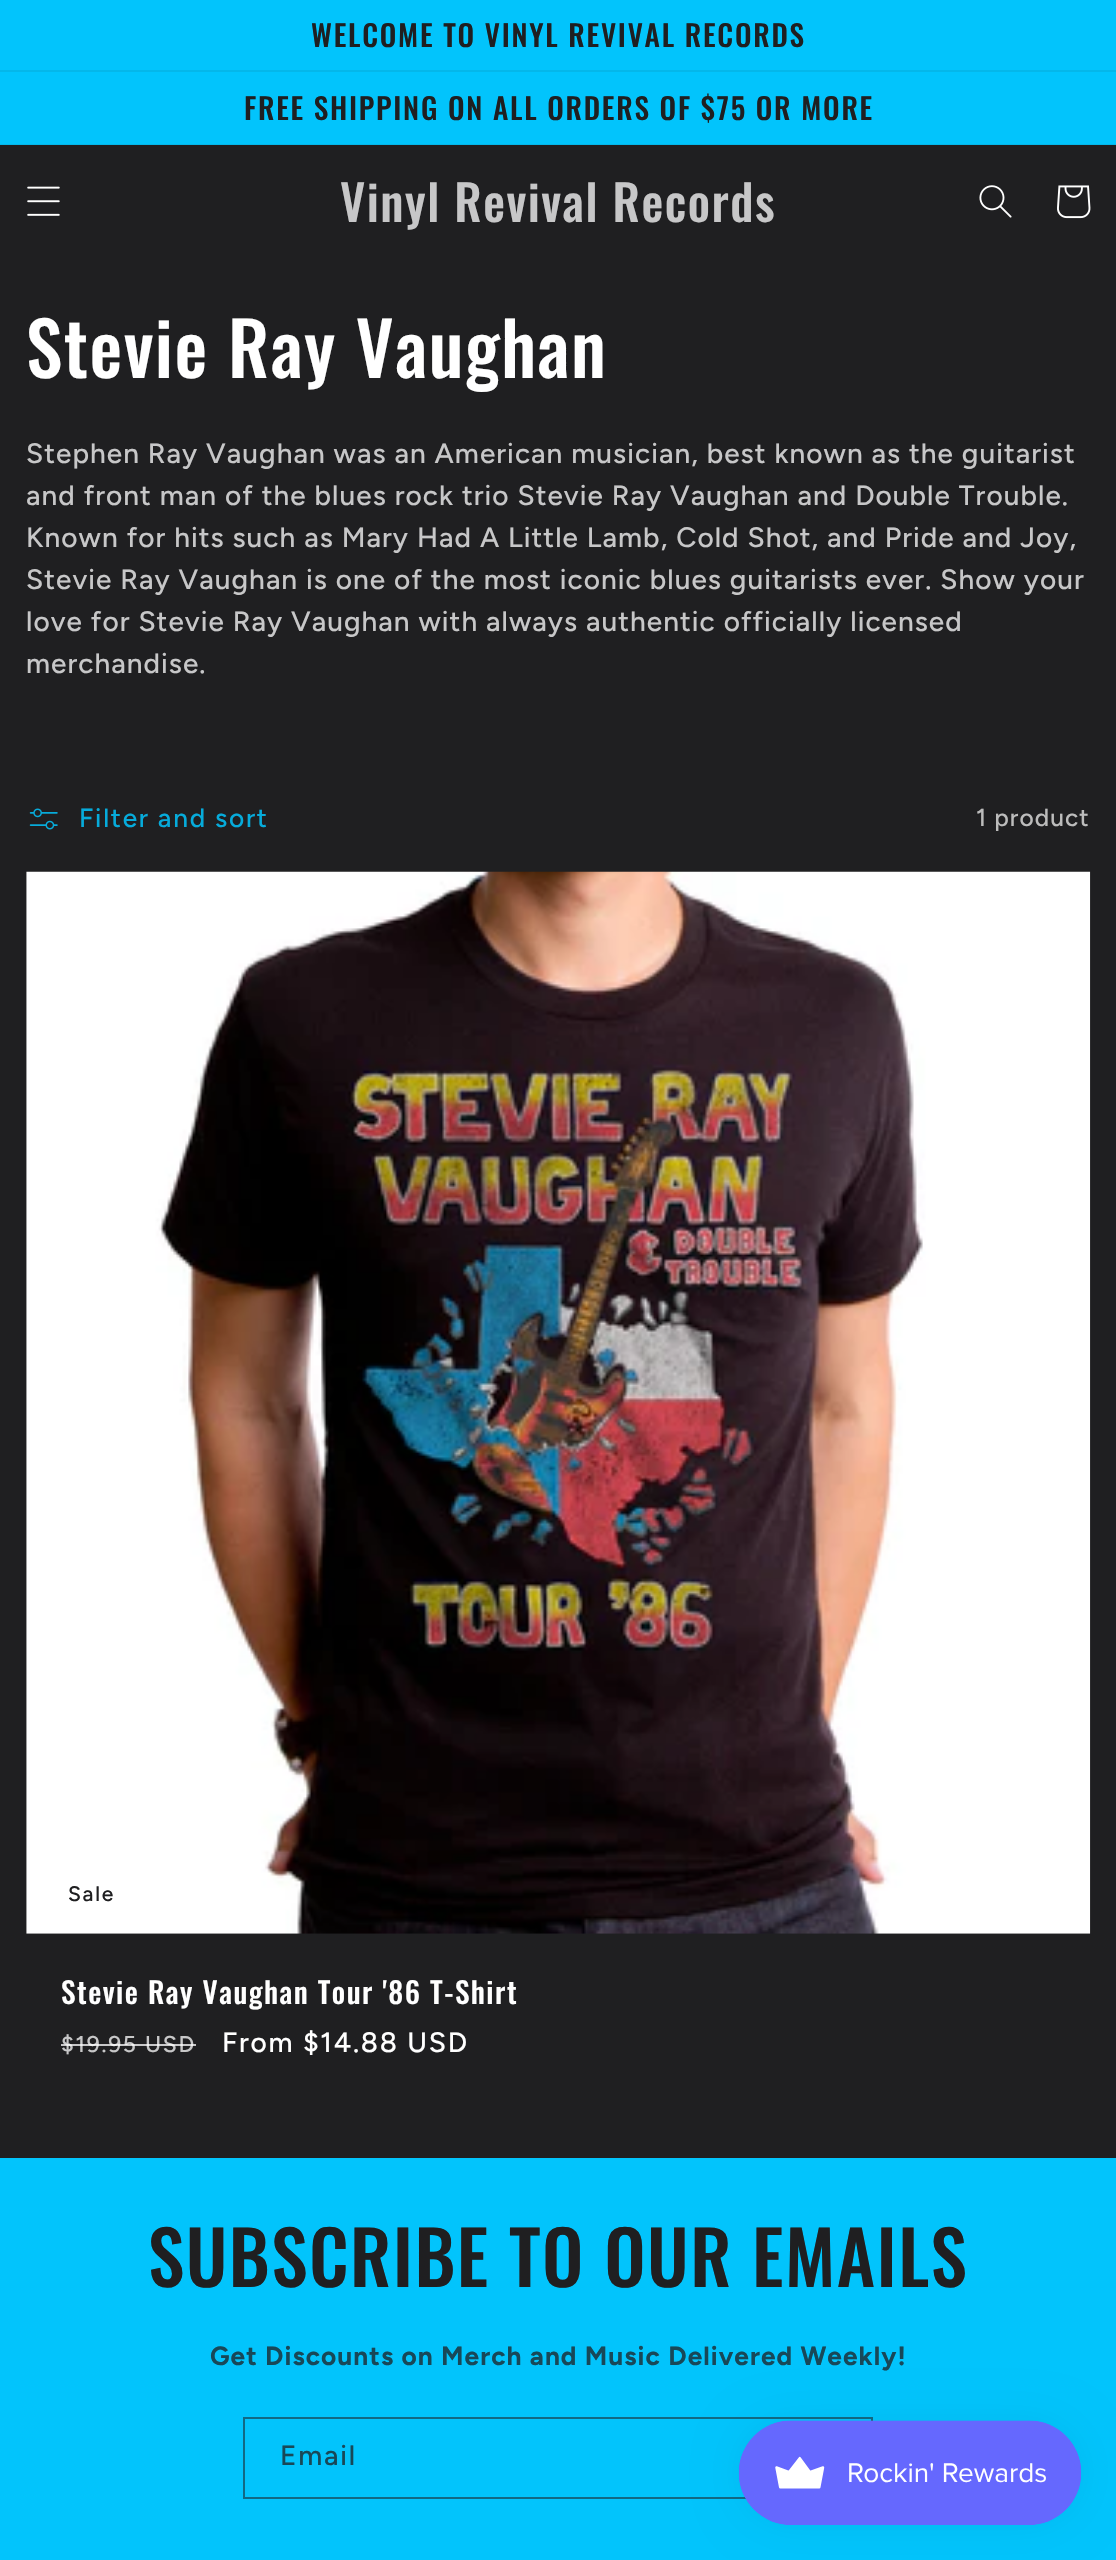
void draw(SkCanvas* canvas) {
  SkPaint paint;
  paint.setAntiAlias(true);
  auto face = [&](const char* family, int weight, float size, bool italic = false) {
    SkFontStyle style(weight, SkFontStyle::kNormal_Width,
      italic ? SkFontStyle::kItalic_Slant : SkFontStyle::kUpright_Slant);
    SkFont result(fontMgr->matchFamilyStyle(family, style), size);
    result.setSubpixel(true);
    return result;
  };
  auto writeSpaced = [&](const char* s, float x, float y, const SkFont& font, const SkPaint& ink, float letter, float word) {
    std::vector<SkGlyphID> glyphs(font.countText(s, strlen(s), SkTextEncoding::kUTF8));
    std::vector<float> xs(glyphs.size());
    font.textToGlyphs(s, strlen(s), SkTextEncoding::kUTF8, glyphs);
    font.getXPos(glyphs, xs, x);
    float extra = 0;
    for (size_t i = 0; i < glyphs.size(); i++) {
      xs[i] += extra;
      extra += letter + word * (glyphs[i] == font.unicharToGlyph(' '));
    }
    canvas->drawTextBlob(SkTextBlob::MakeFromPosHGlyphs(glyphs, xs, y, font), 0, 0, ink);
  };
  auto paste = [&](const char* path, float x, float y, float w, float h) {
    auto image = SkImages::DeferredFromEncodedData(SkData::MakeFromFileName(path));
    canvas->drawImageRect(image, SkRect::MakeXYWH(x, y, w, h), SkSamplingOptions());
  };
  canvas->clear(0xff1f1f21);
  {
    const struct { float x, y, w, h; SkColor color; } items[] = {
      {0, 0, 1116, 70, 0xff02c4fc},
      {0, 70, 1116, 2, 0xff04b7ea},
      {0, 72, 1116, 72, 0xff02c4fc},
      {0, 144, 1116, 1, 0xff04b7ea},
    };
    for (auto [x, y, w, h, color] : items) {
      paint.setColor(color);
      canvas->drawRect(SkRect::MakeXYWH(x, y, w, h), paint);
    }
  }
  paste("img/1.png", 27, 186, 33, 30);
  paste("img/2.png", 979, 185, 33, 33);
  paste("img/3.png", 1057, 185, 34, 34);
  paste("img/4.png", 29, 808, 29, 22);
  paste("img/5.png", 26, 871, 1065, 1063);
  paint.setColor(0xff02c4fc);
  canvas->drawRect(SkRect::MakeXYWH(0, 2158, 1116, 402), paint);
  paint.setStroke(true);
  paint.setStrokeWidth(2);
  paint.setColor(0xff126984);
  canvas->drawRect(SkRect::MakeXYWH(244, 2418, 628, 80), paint);
  paint.setStroke(false);
  paint.setColor(0x0d000000);
  paint.setMaskFilter(SkMaskFilter::MakeBlur(kNormal_SkBlurStyle, 22));
  canvas->drawRoundRect(SkRect::MakeXYWH(739, 2420, 343, 105), 52.5f, 52.5f, paint);
  paint.setMaskFilter(nullptr);
  paste("img/6.png", 738, 2420, 344, 105);
  auto f0 = face("Oswald", 500, 29.4f);
  paint.setColor(0xff1f1f21);
  writeSpaced("WELCOME TO VINYL REVIVAL RECORDS", 311, 47, f0, paint, 1.75f, 0);
  writeSpaced("FREE SHIPPING ON ALL ORDERS OF $75 OR MORE", 244, 120, f0, paint, 1.75f, 0);
  auto f1 = face("Oswald", 500, 49);
  paint.setColor(0xffc7c7c8);
  writeSpaced("Vinyl Revival Records", 340, 222, f1, paint, 1.45f, 0);
  auto f2 = face("Oswald", 500, 73.5f);
  paint.setColor(0xffffffff);
  writeSpaced("Stevie Ray Vaughan", 26, 378, f2, paint, 1.45f, 0);
  auto f3 = face("Figtree", 500, 28);
  paint.setColor(0xffc7c7c8);
  {
    const struct { const char* s; float x, y; } items[] = {
      {"Stephen Ray Vaughan was an American musician, best known as the guitarist", 26, 463},
      {"and front man of the blues rock trio Stevie Ray Vaughan and Double Trouble.", 26, 505},
      {"Known for hits such as Mary Had A Little Lamb, Cold Shot, and Pride and Joy,", 26, 547},
      {"Stevie Ray Vaughan is one of the most iconic blues guitarists ever. Show your", 26, 589},
      {"love for Stevie Ray Vaughan with always authentic officially licensed", 26, 631},
      {"merchandise.", 26, 673},
    };
    for (auto [s, x, y] : items) {
      writeSpaced(s, x, y, f3, paint, 1.05f, 0);
    }
  }
  auto f4 = face("Figtree", 500, 26.25f);
  paint.setColor(0xff06abdb);
  writeSpaced("Filter and sort", 79, 827, f4, paint, 1.75f, 0);
  auto f5 = face("Figtree", 500, 24.5f);
  paint.setColor(0xffbcbcbc);
  writeSpaced("1 product", 976, 826, f5, paint, 1.05f, 0);
  auto f6 = face("Figtree", 500, 21);
  paint.setColor(0xff1f1f21);
  writeSpaced("Sale", 68, 1901, f6, paint, 1.75f, 0);
  paint.setColor(0xffffffff);
  writeSpaced("Stevie Ray Vaughan Tour '86 T-Shirt", 61, 2004, f0, paint, 1.45f, 0);
  auto f7 = face("Figtree", 500, 22.75f);
  paint.setColor(0xffc7c7c8);
  writeSpaced("$19.95 USD", 61, 2052, f7, paint, 1.75f, 0);
  paint.setColor(0xbfffffff);
  canvas->drawRect(SkRect::MakeXYWH(61, 2044, 135, 2), paint);
  paint.setColor(0xffffffff);
  writeSpaced("From $14.88 USD", 222, 2052, f3, paint, 1.75f, 0);
  paint.setColor(0xff1f1f21);
  writeSpaced("SUBSCRIBE TO OUR EMAILS", 148, 2287, f2, paint, 1.45f, 0);
  auto f8 = face("Figtree", 700, 26.25f);
  paint.setColor(0xff184858);
  writeSpaced("Get Discounts on Merch and Music Delivered Weekly!", 210, 2365, f8, paint, 1.05f, 0);
  writeSpaced("Email", 280, 2465, f3, paint, 1.75f, 0);
}
